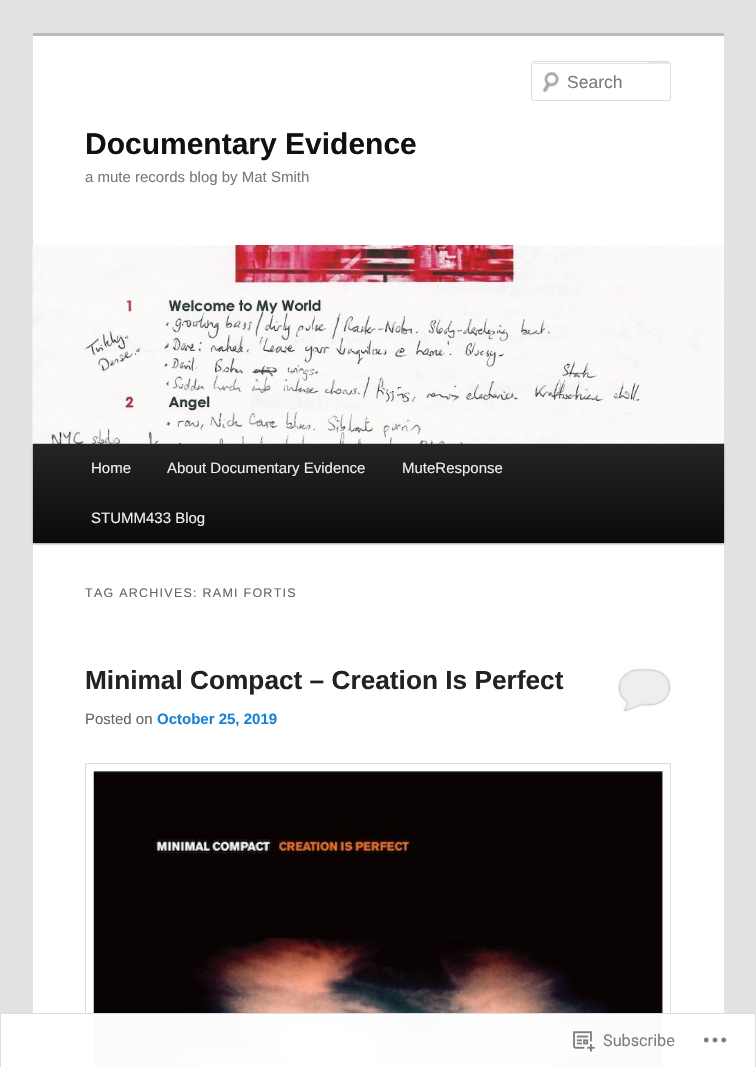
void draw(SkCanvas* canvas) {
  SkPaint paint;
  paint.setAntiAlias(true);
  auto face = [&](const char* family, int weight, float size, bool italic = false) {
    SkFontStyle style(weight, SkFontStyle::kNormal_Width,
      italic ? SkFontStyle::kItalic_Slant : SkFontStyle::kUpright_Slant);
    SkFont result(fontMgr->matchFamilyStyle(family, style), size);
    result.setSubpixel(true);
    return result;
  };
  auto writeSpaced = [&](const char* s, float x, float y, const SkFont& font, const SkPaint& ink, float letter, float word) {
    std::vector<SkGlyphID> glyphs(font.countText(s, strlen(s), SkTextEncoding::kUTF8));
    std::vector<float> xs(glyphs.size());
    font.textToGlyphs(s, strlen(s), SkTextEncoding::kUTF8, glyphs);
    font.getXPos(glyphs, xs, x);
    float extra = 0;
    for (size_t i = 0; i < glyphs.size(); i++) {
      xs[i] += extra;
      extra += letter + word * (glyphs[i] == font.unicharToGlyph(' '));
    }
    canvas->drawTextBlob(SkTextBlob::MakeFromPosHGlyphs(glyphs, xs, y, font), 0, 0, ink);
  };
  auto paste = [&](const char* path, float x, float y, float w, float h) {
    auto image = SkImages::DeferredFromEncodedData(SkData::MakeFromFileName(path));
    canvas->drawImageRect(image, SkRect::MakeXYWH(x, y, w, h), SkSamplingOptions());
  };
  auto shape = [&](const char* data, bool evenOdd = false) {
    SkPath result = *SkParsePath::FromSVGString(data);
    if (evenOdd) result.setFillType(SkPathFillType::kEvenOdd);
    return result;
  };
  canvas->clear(0xffe2e2e2);
  paint.setColor(0xffffffff);
  canvas->drawRect(SkRect::MakeXYWH(33, 36, 691, 1031), paint);
  paint.setColor(0xffbbbbbb);
  canvas->drawRect(SkRect::MakeXYWH(33, 33, 691, 3), paint);
  paste("img/1.png", 542, 71, 17, 22);
  paint.setColor(0xffe6e6e6);
  canvas->drawPath(shape("M534 64H669L670 65C670 57 647 63 646 63H534L533 64Z"), paint);
  paint.setStroke(true);
  paint.setStrokeWidth(1);
  paint.setColor(0xffdddddd);
  canvas->drawRoundRect(SkRect::MakeXYWH(531.5f, 61.5f, 139, 39), 2, 2, paint);
  paint.setStroke(false);
  paint.setColor(0x66000000);
  paint.setMaskFilter(SkMaskFilter::MakeBlur(kNormal_SkBlurStyle, 1));
  canvas->drawRect(SkRect::MakeXYWH(33, 444, 691, 100), paint);
  paint.setMaskFilter(nullptr);
  {
    const SkColor colors[] = {0xff252525, 0xff0a0a0a};
    const float stops[] = {0, 1};
    const SkPoint ends[] = {{378, 442}, {378, 543}};
    paint.setShader(SkGradientShader::MakeLinear(ends, colors, stops, 2, SkTileMode::kClamp));
    paint.setAlpha(255);
  }
  canvas->drawRect(SkRect::MakeXYWH(33, 443, 691, 100), paint);
  paste("img/2.png", 32, 245, 692, 199);
  paint.setShader(nullptr);
  paint.setColor(0xffeeeeee);
  canvas->drawRect(SkRect::MakeXYWH(618, 666, 53, 45), paint);
  paste("img/3.png", 618, 666, 53, 46);
  paint.setStroke(true);
  paint.setColor(0xffdddddd);
  canvas->drawRect(SkRect::MakeXYWH(85.5f, 763.5f, 585, 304), paint);
  paste("img/4.png", 93, 771, 570, 296);
  paint.setStroke(false);
  paint.setColor(0xfaffffff);
  canvas->drawRect(SkRect::MakeXYWH(0, 1013, 756, 54), paint);
  paint.setStroke(true);
  paint.setColor(0xfadcdcde);
  canvas->drawRect(SkRect::MakeXYWH(0.5f, 1013.5f, 755, 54), paint);
  paste("img/5.png", 573, 1031, 22, 21);
  paste("img/6.png", 703, 1037, 24, 6);
  auto f0 = face("Liberation Sans", 400, 17.5f);
  paint.setStroke(false);
  paint.setColor(0xff7a7a7a);
  canvas->drawString("Search", 567, 88, f0, paint);
  auto f1 = face("Liberation Sans", 700, 30);
  paint.setColor(0xff111111);
  canvas->drawString("Documentary Evidence", 85, 154, f1, paint);
  auto f2 = face("Liberation Sans", 400, 15);
  paint.setColor(0xff7a7a7a);
  canvas->drawString("a mute records blog by Mat Smith", 85, 182, f2, paint);
  paint.setColor(0xffeeeeee);
  {
    const struct { const char* s; float x, y; } items[] = {
      {"Home", 91, 473},
      {"About Documentary Evidence", 167, 473},
      {"MuteResponse", 402, 473},
      {"STUMM433 Blog", 91, 523},
    };
    for (auto [s, x, y] : items) {
      canvas->drawString(s, x, y, f2, paint);
    }
  }
  auto f3 = face("Liberation Sans", 400, 12.5f);
  paint.setColor(0xff666666);
  writeSpaced("TAG ARCHIVES: RAMI FORTIS", 85, 597, f3, paint, 1.25f, 0);
  auto f4 = face("Liberation Sans", 700, 26.25f);
  paint.setColor(0xff222222);
  canvas->drawString("Minimal Compact – Creation Is Perfect", 85, 689, f4, paint);
  paint.setColor(0xff666666);
  canvas->drawString("Posted on", 85, 724, f2, paint);
  auto f5 = face("Liberation Sans", 700, 15);
  paint.setColor(0xff1982d1);
  canvas->drawString("October 25, 2019", 157, 724, f5, paint);
  auto f6 = face("Roboto", 400, 16.25f);
  paint.setColor(0xff7b7f84);
  canvas->drawString("Subscribe", 603, 1046, f6, paint);
}
